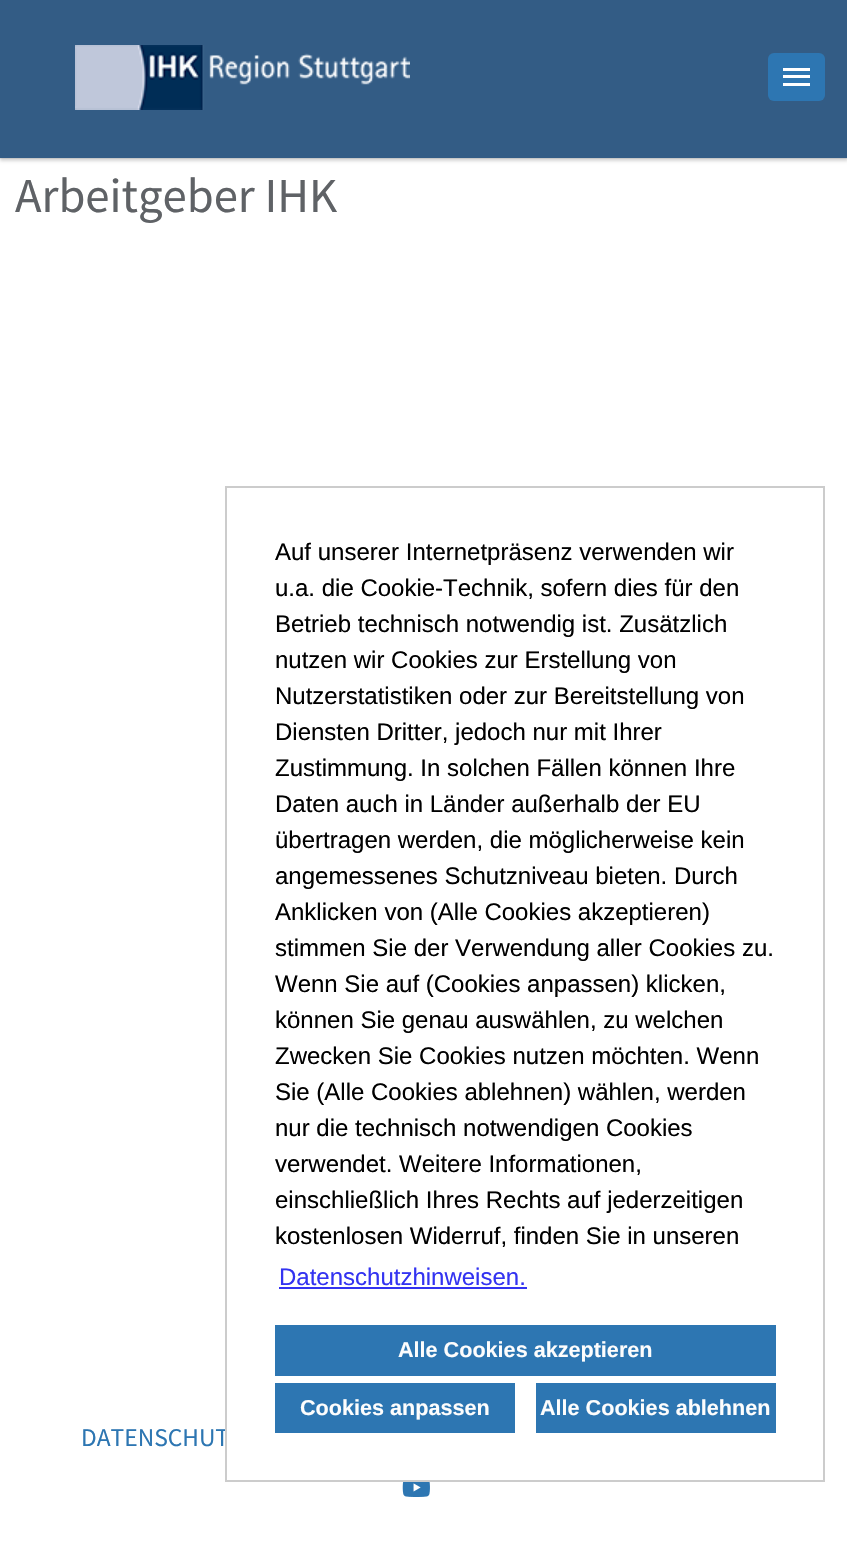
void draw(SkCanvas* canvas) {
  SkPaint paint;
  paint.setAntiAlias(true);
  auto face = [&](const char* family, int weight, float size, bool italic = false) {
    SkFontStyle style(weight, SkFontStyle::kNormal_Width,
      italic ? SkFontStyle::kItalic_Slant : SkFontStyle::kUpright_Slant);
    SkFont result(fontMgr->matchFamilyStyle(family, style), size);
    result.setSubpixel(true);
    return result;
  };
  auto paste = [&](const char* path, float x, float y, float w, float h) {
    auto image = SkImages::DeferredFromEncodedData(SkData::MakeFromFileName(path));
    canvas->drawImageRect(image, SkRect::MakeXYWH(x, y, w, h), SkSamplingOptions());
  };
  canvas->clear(0xffffffff);
  paint.setStroke(true);
  paint.setStrokeWidth(2);
  paint.setColor(0xffebebeb);
  canvas->drawRect(SkRect::MakeXYWH(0, 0, 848, 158), paint);
  paint.setStroke(false);
  paint.setColor(0x29000000);
  paint.setMaskFilter(SkMaskFilter::MakeBlur(kNormal_SkBlurStyle, 1.5f));
  canvas->drawRect(SkRect::MakeXYWH(0, 3, 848, 158), paint);
  paint.setMaskFilter(nullptr);
  paint.setColor(0xff335c85);
  canvas->drawRect(SkRect::MakeXYWH(0, 0, 847, 158), paint);
  paste("img/1.png", 75, 45, 335, 65);
  paint.setColor(0xff2d76b2);
  canvas->drawRoundRect(SkRect::MakeXYWH(768, 53, 57, 48), 6, 6, paint);
  {
    const struct { float x, y, w, h; SkColor color; } items[] = {
      {783, 68, 27, 3, 0xffffffff},
      {783, 75, 27, 3, 0xffffffff},
      {783, 83, 27, 3, 0xffffffff},
    };
    for (auto [x, y, w, h, color] : items) {
      paint.setColor(color);
      canvas->drawRect(SkRect::MakeXYWH(x, y, w, h), paint);
    }
  }
  paste("img/2.png", 402, 1482, 28, 15);
  auto f0 = face("Source Sans Pro", 400, 48.75f);
  paint.setColor(0xff5f6266);
  canvas->drawString("Arbeitgeber IHK", 15, 212, f0, paint);
  auto f1 = face("Source Sans Pro", 400, 25.5f);
  paint.setColor(0xff2d76b2);
  canvas->drawString("DATENSCHUT", 81, 1446, f1, paint);
  paint.setColor(0xffffffff);
  canvas->drawRect(SkRect::MakeXYWH(227, 1429, 2, 3), paint);
  paint.setStroke(true);
  paint.setColor(0xffcccccc);
  canvas->drawRect(SkRect::MakeXYWH(226, 487, 598, 994), paint);
  auto f2 = face("Liberation Sans", 400, 24);
  paint.setStroke(false);
  paint.setColor(0xff000000);
  {
    const struct { const char* s; float x, y; } items[] = {
      {"Auf unserer Internetpräsenz verwenden wir", 275, 560},
      {"u.a. die Cookie-Technik, sofern dies für den", 275, 596},
      {"Betrieb technisch notwendig ist. Zusätzlich", 275, 632},
      {"nutzen wir Cookies zur Erstellung von", 275, 668},
      {"Nutzerstatistiken oder zur Bereitstellung von", 275, 704},
      {"Diensten Dritter, jedoch nur mit Ihrer", 275, 740},
      {"Zustimmung. In solchen Fällen können Ihre", 275, 776},
      {"Daten auch in Länder außerhalb der EU", 275, 812},
      {"übertragen werden, die möglicherweise kein", 275, 848},
      {"angemessenes Schutzniveau bieten. Durch", 275, 884},
      {"Anklicken von (Alle Cookies akzeptieren)", 275, 920},
      {"stimmen Sie der Verwendung aller Cookies zu.", 275, 956},
      {"Wenn Sie auf (Cookies anpassen) klicken,", 275, 992},
      {"können Sie genau auswählen, zu welchen", 275, 1028},
      {"Zwecken Sie Cookies nutzen möchten. Wenn", 275, 1064},
      {"Sie (Alle Cookies ablehnen) wählen, werden", 275, 1100},
      {"nur die technisch notwendigen Cookies", 275, 1136},
      {"verwendet. Weitere Informationen,", 275, 1172},
      {"einschließlich Ihres Rechts auf jederzeitigen", 275, 1208},
      {"kostenlosen Widerruf, finden Sie in unseren", 275, 1244},
    };
    for (auto [s, x, y] : items) {
      canvas->drawString(s, x, y, f2, paint);
    }
  }
  paint.setColor(0xff3333f1);
  canvas->drawString("Datenschutzhinweisen.", 279, 1285, f2, paint);
  canvas->drawRect(SkRect::MakeXYWH(279, 1287, 248, 2), paint);
  paint.setColor(0xff2d76b2);
  canvas->drawRect(SkRect::MakeXYWH(275, 1325, 501, 51), paint);
  auto f3 = face("Liberation Sans", 700, 21.6f);
  paint.setColor(0xfffdfdfd);
  canvas->drawString("Alle Cookies akzeptieren", 398, 1357, f3, paint);
  paint.setColor(0xff2d76b2);
  canvas->drawRect(SkRect::MakeXYWH(275, 1383, 240, 50), paint);
  paint.setColor(0xfffdfdfd);
  canvas->drawString("Cookies anpassen", 300, 1415, f3, paint);
  paint.setColor(0xff2d76b2);
  canvas->drawRect(SkRect::MakeXYWH(536, 1383, 240, 50), paint);
  paint.setColor(0xfffdfdfd);
  canvas->drawString("Alle Cookies ablehnen", 540, 1415, f3, paint);
}
